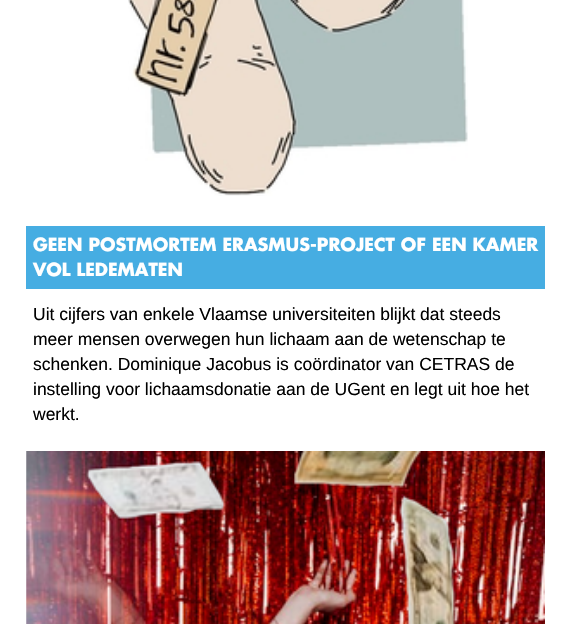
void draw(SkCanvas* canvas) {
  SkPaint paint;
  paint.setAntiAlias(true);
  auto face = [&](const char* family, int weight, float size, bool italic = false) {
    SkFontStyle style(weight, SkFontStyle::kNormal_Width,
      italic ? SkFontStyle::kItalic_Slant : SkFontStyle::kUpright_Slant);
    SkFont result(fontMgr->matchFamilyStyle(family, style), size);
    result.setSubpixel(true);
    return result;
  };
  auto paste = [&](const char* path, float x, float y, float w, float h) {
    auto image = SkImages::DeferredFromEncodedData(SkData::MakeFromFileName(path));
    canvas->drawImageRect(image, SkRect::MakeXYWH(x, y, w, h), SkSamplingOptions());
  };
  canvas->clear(0xffffffff);
  paste("img/1.png", 128, 0, 340, 196);
  paint.setColor(0xff46ade2);
  canvas->drawRect(SkRect::MakeXYWH(26, 226, 519, 63), paint);
  paste("img/2.png", 26, 451, 519, 173);
  auto f0 = face("Futura", 700, 17.5f);
  paint.setColor(0xffffffff);
  canvas->drawString("GEEN POSTMORTEM ERASMUS-PROJECT OF EEN KAMER", 33, 251, f0, paint);
  canvas->drawString("VOL LEDEMATEN", 33, 276, f0, paint);
  auto f1 = face("Liberation Sans", 400, 17.5f);
  paint.setColor(0xff000000);
  {
    const struct { const char* s; float x, y; } items[] = {
      {"Uit cijfers van enkele Vlaamse universiteiten blijkt dat steeds", 33, 320},
      {"meer mensen overwegen hun lichaam aan de wetenschap te", 33, 345},
      {"schenken. Dominique Jacobus is coördinator van CETRAS de", 33, 370},
      {"instelling voor lichaamsdonatie aan de UGent en legt uit hoe het", 33, 395},
      {"werkt.", 33, 420},
    };
    for (auto [s, x, y] : items) {
      canvas->drawString(s, x, y, f1, paint);
    }
  }
}
